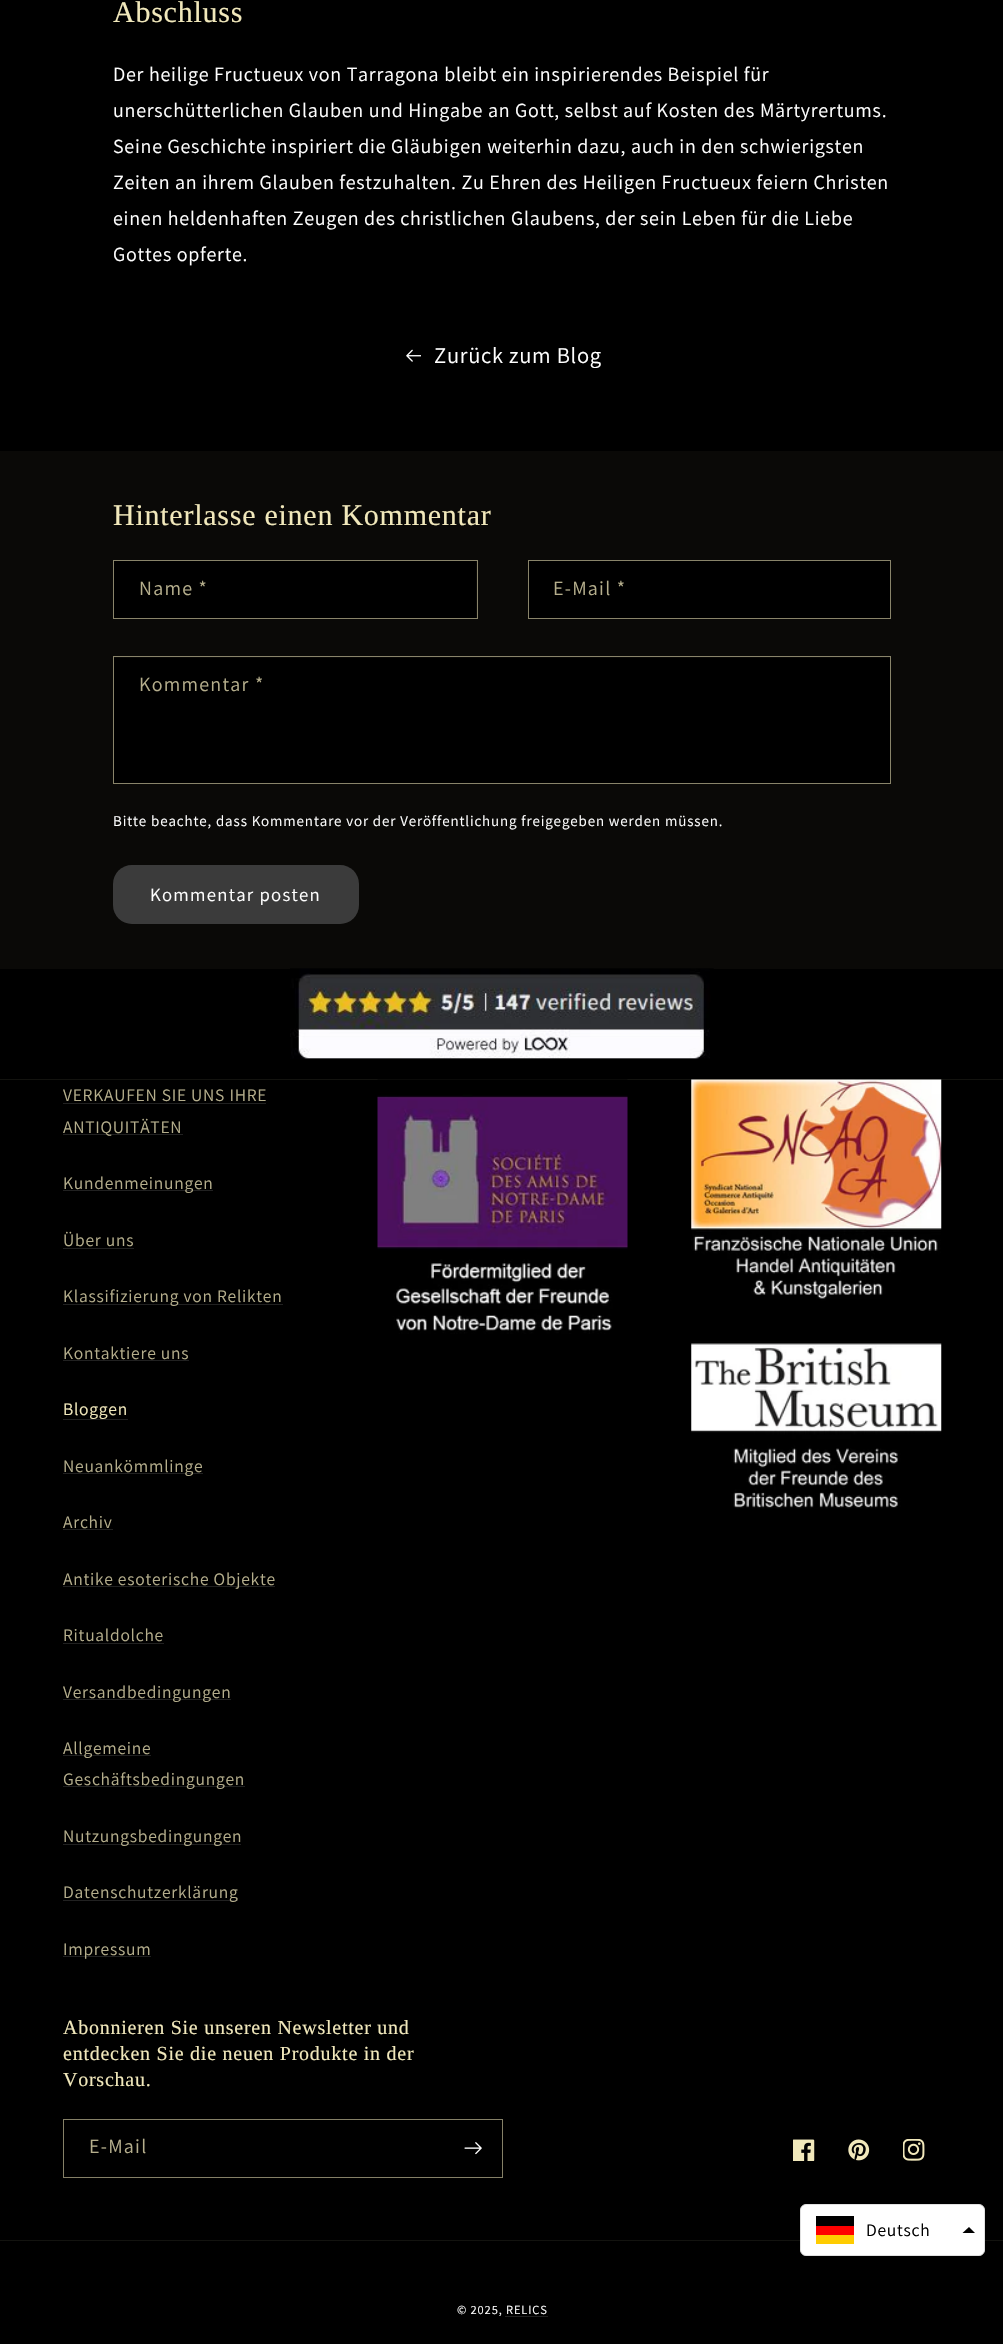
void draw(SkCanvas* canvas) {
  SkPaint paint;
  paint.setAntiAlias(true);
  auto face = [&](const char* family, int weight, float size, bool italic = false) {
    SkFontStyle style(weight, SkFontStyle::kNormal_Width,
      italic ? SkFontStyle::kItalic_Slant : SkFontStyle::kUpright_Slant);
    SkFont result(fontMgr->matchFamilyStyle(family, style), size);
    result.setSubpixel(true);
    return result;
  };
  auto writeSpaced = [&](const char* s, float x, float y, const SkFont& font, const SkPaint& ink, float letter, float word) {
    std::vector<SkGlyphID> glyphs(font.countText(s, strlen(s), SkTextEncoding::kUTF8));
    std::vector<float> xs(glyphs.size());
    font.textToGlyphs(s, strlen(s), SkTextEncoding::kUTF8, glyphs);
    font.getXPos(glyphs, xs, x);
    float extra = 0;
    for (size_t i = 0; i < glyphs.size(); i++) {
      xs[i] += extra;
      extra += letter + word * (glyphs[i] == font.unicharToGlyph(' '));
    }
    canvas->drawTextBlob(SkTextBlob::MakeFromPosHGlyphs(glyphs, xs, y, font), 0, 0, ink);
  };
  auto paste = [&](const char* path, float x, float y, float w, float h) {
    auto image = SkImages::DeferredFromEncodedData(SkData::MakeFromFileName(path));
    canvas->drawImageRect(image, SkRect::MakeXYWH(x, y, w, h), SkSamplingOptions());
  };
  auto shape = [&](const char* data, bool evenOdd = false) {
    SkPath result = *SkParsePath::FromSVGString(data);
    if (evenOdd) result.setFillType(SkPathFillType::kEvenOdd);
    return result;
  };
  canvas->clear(0xff000000);
  paste("img/1.png", 406, 349, 15, 13);
  paint.setColor(0xff0a0907);
  canvas->drawRect(SkRect::MakeXYWH(0, 451, 1003, 518), paint);
  paint.setColor(0xff000000);
  canvas->drawRect(SkRect::MakeXYWH(114, 561, 362, 57), paint);
  paint.setStroke(true);
  paint.setStrokeWidth(1);
  paint.setColor(0xff89846a);
  canvas->drawRect(SkRect::MakeXYWH(113.5f, 560.5f, 364, 58), paint);
  paint.setStroke(false);
  paint.setColor(0xff000000);
  canvas->drawRect(SkRect::MakeXYWH(529, 561, 361, 57), paint);
  paint.setStroke(true);
  paint.setColor(0xff89846a);
  canvas->drawRect(SkRect::MakeXYWH(528.5f, 560.5f, 362, 58), paint);
  paint.setStroke(false);
  paint.setColor(0xff000000);
  canvas->drawRect(SkRect::MakeXYWH(114, 658, 776, 125), paint);
  paint.setStroke(true);
  paint.setColor(0xff89846a);
  canvas->drawRect(SkRect::MakeXYWH(113.5f, 656.5f, 777, 127), paint);
  paint.setStroke(false);
  paint.setColor(0xff3b3b3b);
  canvas->drawRoundRect(SkRect::MakeXYWH(113, 865, 246, 59), 19, 19, paint);
  paste("img/2.png", 290, 968, 424, 91);
  {
    const struct { float x, y, w, h; SkColor color; } items[] = {
      {0, 1079, 1003, 1, 0xff13130f},
      {63, 1103, 203, 1, 0xff212121},
      {63, 1134, 120, 1, 0xff212121},
      {63, 1190, 150, 1, 0xff212121},
      {63, 1248, 71, 1, 0xff212121},
      {63, 1304, 220, 1, 0xff212121},
      {63, 1360, 126, 1, 0xff212121},
      {63, 1419, 65, 1, 0xff212121},
      {63, 1473, 140, 1, 0xff212121},
      {63, 1529, 50, 1, 0xff212121},
      {63, 1586, 212, 1, 0xff212121},
      {63, 1643, 101, 1, 0xff212121},
      {63, 1699, 168, 1, 0xff212121},
      {63, 1755, 88, 1, 0xff212121},
      {63, 1786, 182, 1, 0xff212121},
      {63, 1844, 178, 1, 0xff212121},
      {63, 1900, 175, 1, 0xff212121},
      {63, 1956, 88, 1, 0xff212121},
    };
    for (auto [x, y, w, h, color] : items) {
      paint.setColor(color);
      canvas->drawRect(SkRect::MakeXYWH(x, y, w, h), paint);
    }
  }
  paste("img/3.png", 377, 1079, 251, 255);
  paste("img/4.png", 691, 1079, 251, 430);
  paint.setStroke(true);
  paint.setColor(0xff858067);
  canvas->drawRect(SkRect::MakeXYWH(63.5f, 2119.5f, 439, 58), paint);
  paste("img/5.png", 464, 2142, 18, 13);
  paste("img/6.png", 793, 2139, 22, 22);
  paste("img/7.png", 848, 2139, 22, 22);
  paste("img/8.png", 903, 2139, 22, 22);
  paint.setStroke(false);
  paint.setColor(0xff13130f);
  canvas->drawRect(SkRect::MakeXYWH(0, 2240, 1003, 1), paint);
  paint.setColor(0xffffffff);
  canvas->drawRoundRect(SkRect::MakeXYWH(800.5f, 2204.5f, 184, 51), 5.5f, 5.5f, paint);
  paint.setStroke(true);
  paint.setColor(0xffe0e0e0);
  canvas->drawRoundRect(SkRect::MakeXYWH(800.5f, 2204.5f, 184, 51), 5.5f, 5.5f, paint);
  paint.setStroke(false);
  {
    const struct { float x, y, w, h; SkColor color; } items[] = {
      {816, 2235, 38, 9, 0xffffcc00},
      {816, 2216, 38, 10, 0xff000000},
      {816, 2226, 38, 9, 0xffff0000},
    };
    for (auto [x, y, w, h, color] : items) {
      paint.setColor(color);
      canvas->drawRect(SkRect::MakeXYWH(x, y, w, h), paint);
    }
  }
  paint.setColor(0xff000000);
  canvas->drawPath(shape("M962.5 2233L969 2227L975 2233Z", true), paint);
  auto f0 = face("Liberation Serif", 400, 30);
  paint.setColor(0xfff1e8bb);
  writeSpaced("Abschluss", 113, 22, f0, paint, 0.75f, 0);
  auto f1 = face("Assistant", 400, 20);
  paint.setColor(0xffffffff);
  {
    const struct { const char* s; float x, y; } items[] = {
      {"Der heilige Fructueux von Tarragona bleibt ein inspirierendes Beispiel für", 113, 81},
      {"unerschütterlichen Glauben und Hingabe an Gott, selbst auf Kosten des Märtyrertums.", 113, 117},
      {"Seine Geschichte inspiriert die Gläubigen weiterhin dazu, auch in den schwierigsten", 113, 153},
      {"Zeiten an ihrem Glauben festzuhalten. Zu Ehren des Heiligen Fructueux feiern Christen", 113, 189},
      {"einen heldenhaften Zeugen des christlichen Glaubens, der sein Leben für die Liebe", 113, 225},
      {"Gottes opferte.", 113, 261},
    };
    for (auto [s, x, y] : items) {
      writeSpaced(s, x, y, f1, paint, 0.75f, 0);
    }
  }
  auto f2 = face("Assistant", 400, 22.5f);
  writeSpaced("Zurück zum Blog", 434, 363, f2, paint, 0.75f, 0);
  paint.setColor(0xfff1e8bb);
  writeSpaced("Hinterlasse einen Kommentar", 113, 525, f0, paint, 0.75f, 0);
  paint.setColor(0xffb5ae8c);
  {
    const struct { const char* s; float x, y; } items[] = {
      {"Name *", 139, 595},
      {"E-Mail *", 553, 595},
      {"Kommentar *", 139, 691},
    };
    for (auto [s, x, y] : items) {
      writeSpaced(s, x, y, f1, paint, 1.25f, 0);
    }
  }
  auto f3 = face("Assistant", 400, 15);
  paint.setColor(0xffffffff);
  writeSpaced("Bitte beachte, dass Kommentare vor der Veröffentlichung freigegeben werden müssen.", 113, 826, f3, paint, 0.88f, 0);
  auto f4 = face("Assistant", 400, 18.75f);
  writeSpaced("Kommentar posten", 150, 901, f4, paint, 1.25f, 0);
  auto f5 = face("Assistant", 400, 17.5f);
  paint.setColor(0xffb5ae8c);
  {
    const struct { const char* s; float x, y; } items[] = {
      {"VERKAUFEN SIE UNS IHRE", 63, 1101},
      {"ANTIQUITÄTEN", 63, 1133},
      {"Kundenmeinungen", 63, 1189},
      {"Über uns", 63, 1246},
      {"Klassifizierung von Relikten", 63, 1302},
      {"Kontaktiere uns", 63, 1359},
    };
    for (auto [s, x, y] : items) {
      writeSpaced(s, x, y, f5, paint, 0.75f, 0);
    }
  }
  paint.setColor(0xfff1e8bb);
  writeSpaced("Bloggen", 63, 1415, f5, paint, 0.75f, 0);
  paint.setColor(0xffb5ae8c);
  {
    const struct { const char* s; float x, y; } items[] = {
      {"Neuankömmlinge", 63, 1472},
      {"Archiv", 63, 1528},
      {"Antike esoterische Objekte", 63, 1585},
      {"Ritualdolche", 63, 1641},
      {"Versandbedingungen", 63, 1698},
      {"Allgemeine", 63, 1754},
      {"Geschäftsbedingungen", 63, 1785},
      {"Nutzungsbedingungen", 63, 1842},
      {"Datenschutzerklärung", 63, 1898},
      {"Impressum", 63, 1955},
    };
    for (auto [s, x, y] : items) {
      writeSpaced(s, x, y, f5, paint, 0.75f, 0);
    }
  }
  auto f6 = face("Liberation Serif", 400, 20);
  paint.setColor(0xfff1e8bb);
  {
    const struct { const char* s; float x, y; } items[] = {
      {"Abonnieren Sie unseren Newsletter und", 63, 2034},
      {"entdecken Sie die neuen Produkte in der", 63, 2060},
      {"Vorschau.", 63, 2086},
    };
    for (auto [s, x, y] : items) {
      writeSpaced(s, x, y, f6, paint, 0.75f, 0);
    }
  }
  paint.setColor(0xffb5ae8c);
  writeSpaced("E-Mail", 89, 2153, f1, paint, 1.25f, 0);
  auto f7 = face("Assistant", 400, 12.5f);
  paint.setColor(0xffffffff);
  writeSpaced("© 2025, RELICS", 457, 2314, f7, paint, 0.88f, 0);
  paint.setColor(0xff212121);
  canvas->drawRect(SkRect::MakeXYWH(505, 2316, 43, 1), paint);
  paint.setColor(0xff000000);
  writeSpaced("Deutsch", 866, 2236, f5, paint, 0.75f, 0);
}
